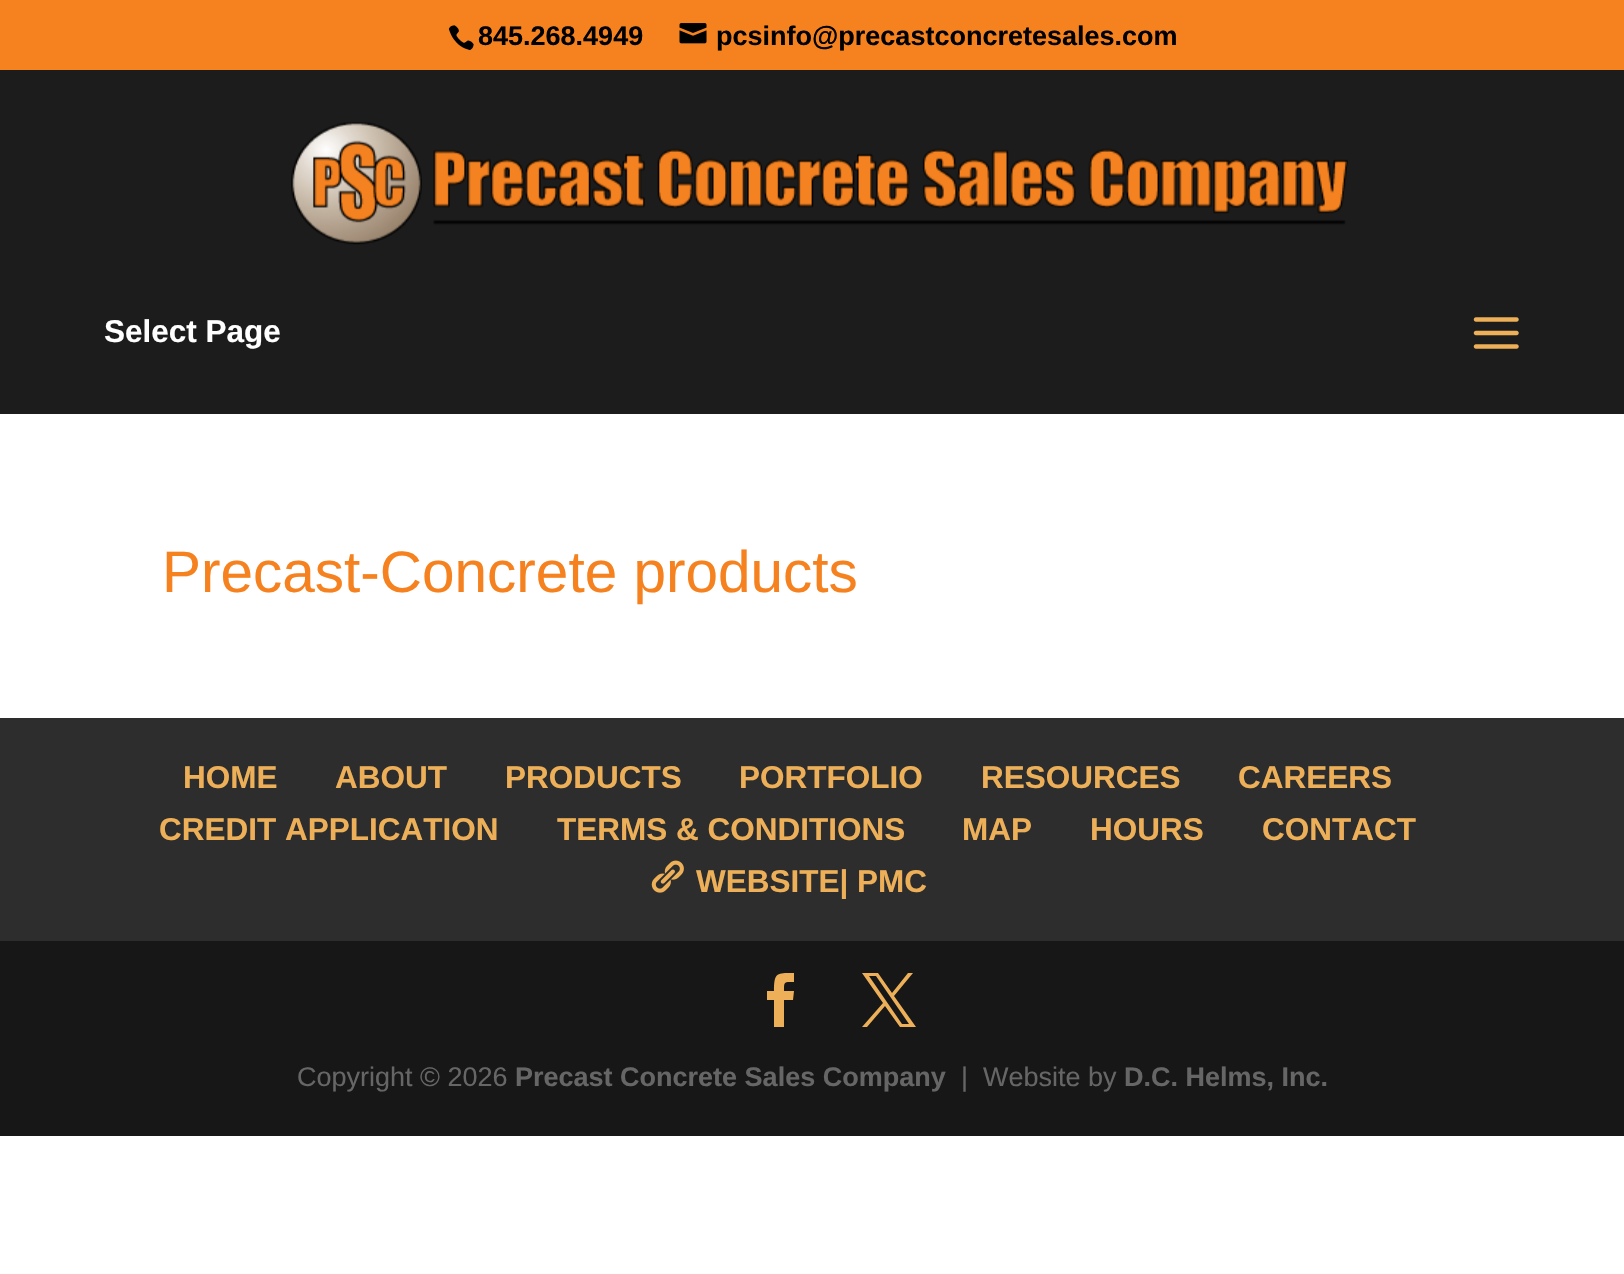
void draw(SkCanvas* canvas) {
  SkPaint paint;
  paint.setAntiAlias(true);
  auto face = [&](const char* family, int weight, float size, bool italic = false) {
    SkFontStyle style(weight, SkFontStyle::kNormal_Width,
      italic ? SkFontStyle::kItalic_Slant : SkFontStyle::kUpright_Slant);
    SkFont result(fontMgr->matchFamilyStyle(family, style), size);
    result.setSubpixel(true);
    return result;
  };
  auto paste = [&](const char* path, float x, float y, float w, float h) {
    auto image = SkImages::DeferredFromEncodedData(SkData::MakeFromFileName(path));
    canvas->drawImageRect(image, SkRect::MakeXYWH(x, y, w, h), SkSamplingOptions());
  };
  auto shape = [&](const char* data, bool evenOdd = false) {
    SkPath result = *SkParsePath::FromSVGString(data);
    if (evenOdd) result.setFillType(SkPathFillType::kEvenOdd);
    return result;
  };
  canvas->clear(0xffffffff);
  paint.setColor(0xfff5821f);
  canvas->drawRect(SkRect::MakeXYWH(0, 0, 1624, 70), paint);
  paste("img/1.png", 448, 25, 26, 26);
  paste("img/2.png", 679, 23, 28, 21);
  paint.setColor(0xff1c1c1c);
  canvas->drawRect(SkRect::MakeXYWH(0, 70, 1624, 344), paint);
  paste("img/3.png", 291, 122, 1057, 123);
  paste("img/4.png", 1473, 317, 46, 32);
  paint.setColor(0xff2d2d2d);
  canvas->drawRect(SkRect::MakeXYWH(0, 718, 1624, 223), paint);
  paste("img/5.png", 651, 860, 33, 33);
  paint.setColor(0xff171717);
  canvas->drawRect(SkRect::MakeXYWH(0, 941, 1624, 195), paint);
  paint.setColor(0xffedb059);
  canvas->drawPath(shape("M774 1027H784V1000H793L794 991H784C784 981 784 982 794 982V973C777 973 774 972 774 991H767V1000H774Z"), paint);
  canvas->drawPath(shape("M862 973L883 1003L862 1027H867L885 1006L900 1027H916L894 996L913 973H908L892 993L878 973ZM869 976H876L909 1024H902Z"), paint);
  auto f0 = face("Liberation Sans", 700, 27);
  paint.setColor(0xff000000);
  canvas->drawString("845.268.4949", 478, 45, f0, paint);
  canvas->drawString("pcsinfo@precastconcretesales.com", 716, 45, f0, paint);
  auto f1 = face("Liberation Sans", 700, 31.5f);
  paint.setColor(0xffffffff);
  canvas->drawString("Select Page", 104, 342, f1, paint);
  auto f2 = face("Liberation Sans", 400, 58.5f);
  paint.setColor(0xfff5821f);
  canvas->drawString("Precast-Concrete products", 162, 592, f2, paint);
  paint.setColor(0xffedb059);
  {
    const struct { const char* s; float x, y; } items[] = {
      {"HOME", 183, 788},
      {"ABOUT", 335, 788},
      {"PRODUCTS", 505, 788},
      {"PORTFOLIO", 739, 788},
      {"RESOURCES", 981, 788},
      {"CAREERS", 1238, 788},
      {"CREDIT APPLICATION", 159, 840},
      {"TERMS & CONDITIONS", 557, 840},
      {"MAP", 962, 840},
      {"HOURS", 1090, 840},
      {"CONTACT", 1262, 840},
      {"WEBSITE| PMC", 696, 892},
    };
    for (auto [s, x, y] : items) {
      canvas->drawString(s, x, y, f1, paint);
    }
  }
  auto f3 = face("Liberation Sans", 400, 27);
  paint.setColor(0xff666666);
  canvas->drawString("Copyright © 2026", 297, 1086, f3, paint);
  canvas->drawString("Precast Concrete Sales Company", 515, 1086, f0, paint);
  canvas->drawString("|", 961, 1086, f3, paint);
  canvas->drawString("Website by", 983, 1086, f3, paint);
  canvas->drawString("D.C. Helms, Inc.", 1124, 1086, f0, paint);
}
